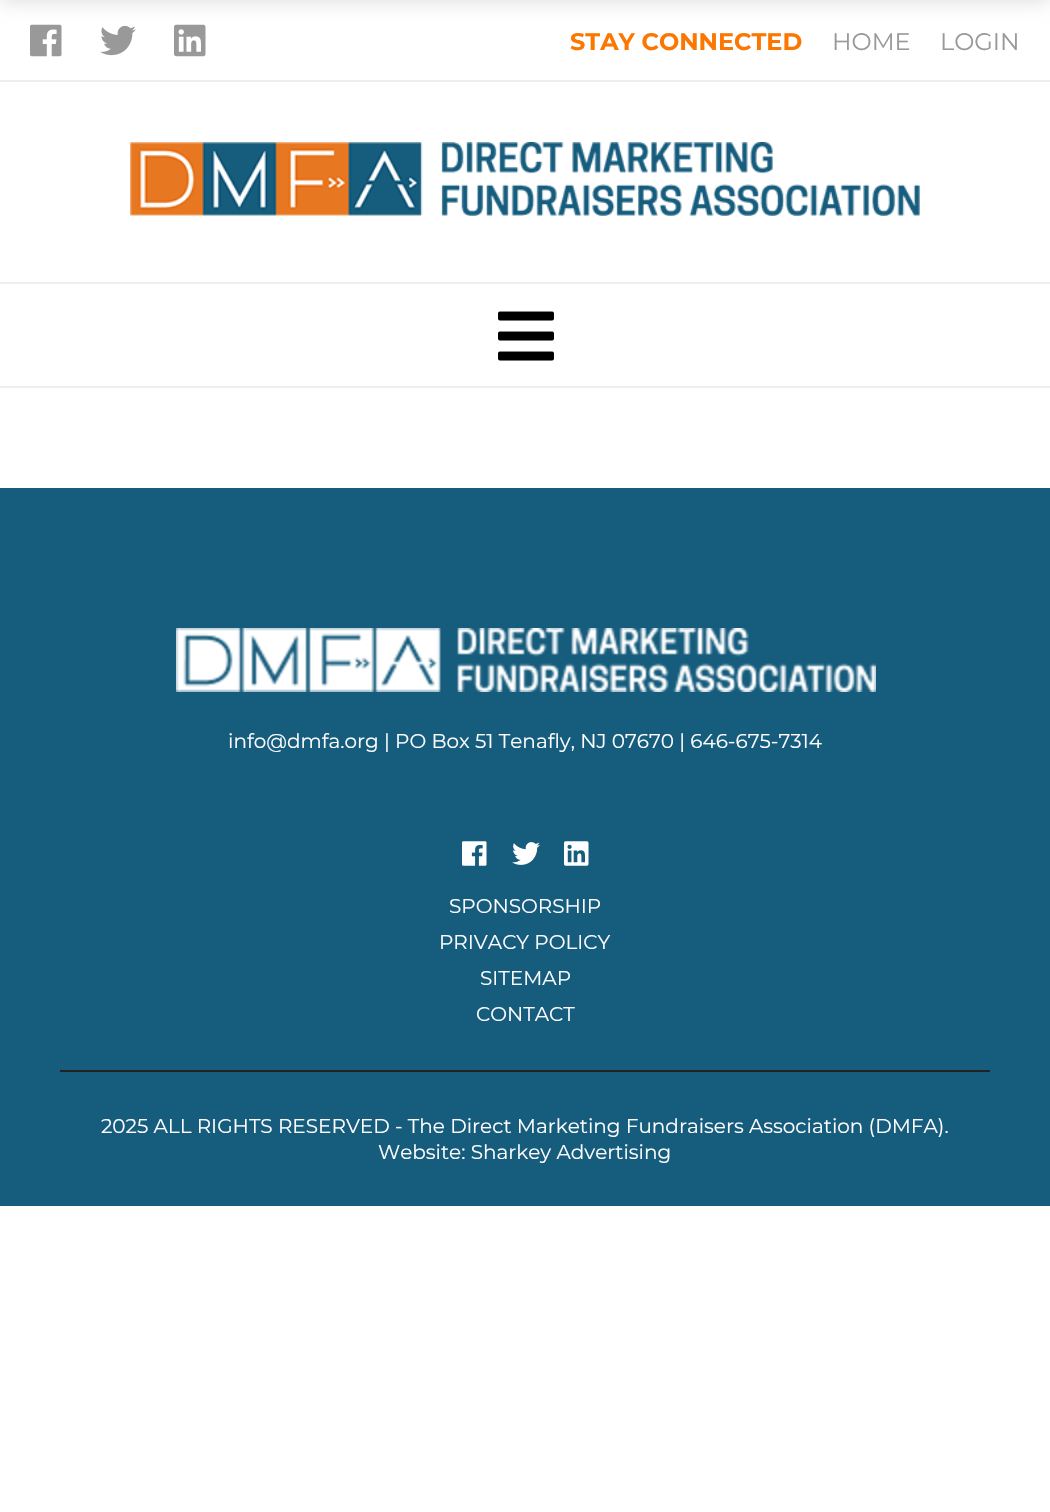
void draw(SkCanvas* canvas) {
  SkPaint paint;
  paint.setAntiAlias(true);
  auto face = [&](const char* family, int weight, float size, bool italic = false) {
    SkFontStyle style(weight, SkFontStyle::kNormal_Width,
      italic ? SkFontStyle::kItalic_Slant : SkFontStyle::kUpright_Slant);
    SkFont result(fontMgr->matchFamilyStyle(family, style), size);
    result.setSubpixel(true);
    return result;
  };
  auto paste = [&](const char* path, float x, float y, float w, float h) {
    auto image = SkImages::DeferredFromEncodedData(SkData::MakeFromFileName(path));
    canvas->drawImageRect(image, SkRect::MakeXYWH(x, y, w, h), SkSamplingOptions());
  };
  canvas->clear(0xffffffff);
  paste("img/1.png", 30, 24, 32, 33);
  paste("img/2.png", 100, 25, 36, 31);
  paste("img/3.png", 174, 24, 32, 33);
  paint.setColor(0x26000000);
  paint.setMaskFilter(SkMaskFilter::MakeBlur(kNormal_SkBlurStyle, 10));
  canvas->drawRect(SkRect::MakeXYWH(0, -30, 1050, 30), paint);
  paint.setMaskFilter(nullptr);
  paint.setColor(0xffeeeeee);
  canvas->drawRect(SkRect::MakeXYWH(0, 80, 1050, 2), paint);
  canvas->drawRect(SkRect::MakeXYWH(0, 282, 1050, 2), paint);
  paste("img/4.png", 130, 142, 790, 74);
  canvas->drawRect(SkRect::MakeXYWH(0, 386, 1050, 2), paint);
  paste("img/5.png", 498, 311, 56, 50);
  paint.setColor(0xff165c7d);
  canvas->drawRect(SkRect::MakeXYWH(0, 488, 1050, 718), paint);
  paste("img/6.png", 176, 628, 700, 64);
  paste("img/7.png", 462, 841, 25, 25);
  paste("img/8.png", 512, 842, 28, 23);
  paste("img/9.png", 564, 841, 25, 25);
  paint.setColor(0xff222222);
  canvas->drawRect(SkRect::MakeXYWH(60, 1070, 930, 2), paint);
  auto f0 = face("Montserrat", 700, 24);
  paint.setColor(0xfffb7701);
  canvas->drawString("STAY CONNECTED", 570, 50, f0, paint);
  auto f1 = face("Montserrat", 400, 24);
  paint.setColor(0xff999999);
  canvas->drawString("HOME", 832, 50, f1, paint);
  canvas->drawString("LOGIN", 940, 50, f1, paint);
  auto f2 = face("Montserrat", 400, 20);
  paint.setColor(0xffffffff);
  {
    const struct { const char* s; float x, y; } items[] = {
      {"info@dmfa.org | PO Box 51 Tenafly, NJ 07670 | 646-675-7314", 228, 748},
      {"SPONSORSHIP", 449, 913},
      {"PRIVACY POLICY", 439, 949},
      {"SITEMAP", 480, 985},
      {"CONTACT", 476, 1021},
      {"2025 ALL RIGHTS RESERVED - The Direct Marketing Fundraisers Association (DMFA).", 101, 1133},
      {"Website: Sharkey Advertising", 378, 1159},
    };
    for (auto [s, x, y] : items) {
      canvas->drawString(s, x, y, f2, paint);
    }
  }
}
